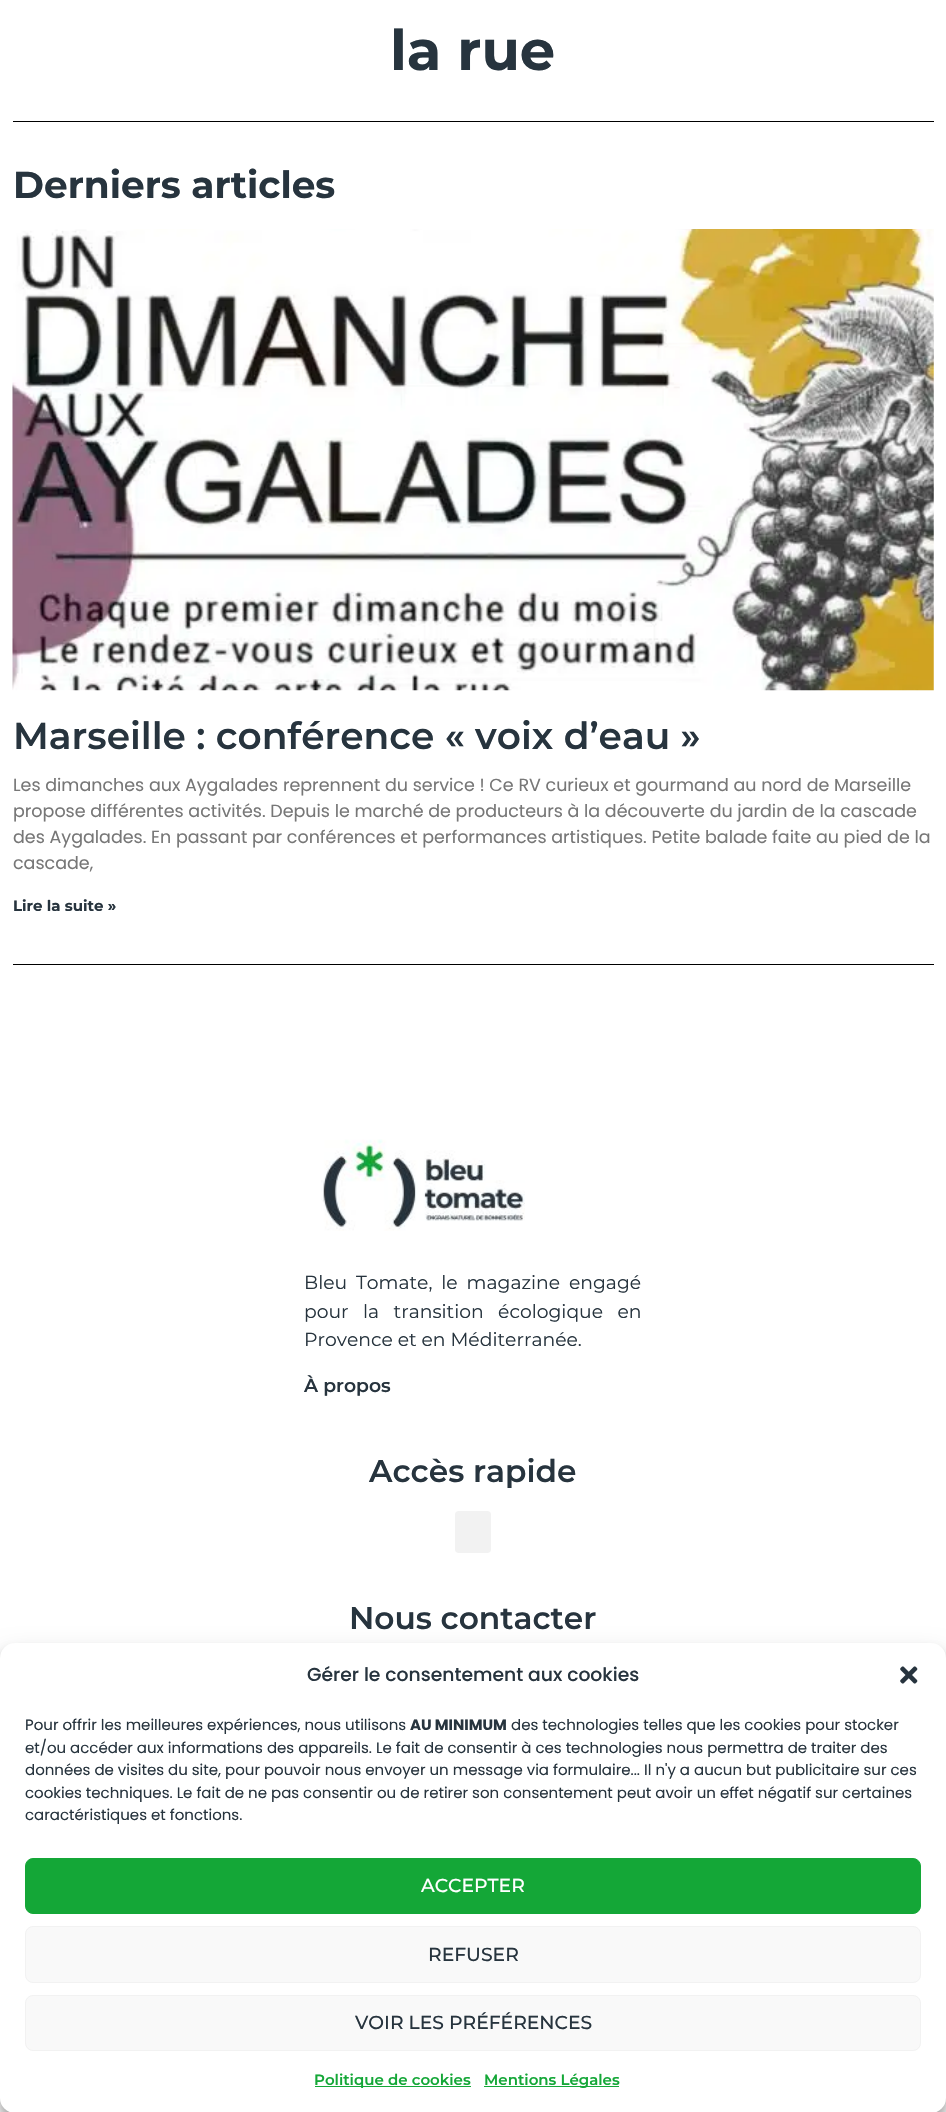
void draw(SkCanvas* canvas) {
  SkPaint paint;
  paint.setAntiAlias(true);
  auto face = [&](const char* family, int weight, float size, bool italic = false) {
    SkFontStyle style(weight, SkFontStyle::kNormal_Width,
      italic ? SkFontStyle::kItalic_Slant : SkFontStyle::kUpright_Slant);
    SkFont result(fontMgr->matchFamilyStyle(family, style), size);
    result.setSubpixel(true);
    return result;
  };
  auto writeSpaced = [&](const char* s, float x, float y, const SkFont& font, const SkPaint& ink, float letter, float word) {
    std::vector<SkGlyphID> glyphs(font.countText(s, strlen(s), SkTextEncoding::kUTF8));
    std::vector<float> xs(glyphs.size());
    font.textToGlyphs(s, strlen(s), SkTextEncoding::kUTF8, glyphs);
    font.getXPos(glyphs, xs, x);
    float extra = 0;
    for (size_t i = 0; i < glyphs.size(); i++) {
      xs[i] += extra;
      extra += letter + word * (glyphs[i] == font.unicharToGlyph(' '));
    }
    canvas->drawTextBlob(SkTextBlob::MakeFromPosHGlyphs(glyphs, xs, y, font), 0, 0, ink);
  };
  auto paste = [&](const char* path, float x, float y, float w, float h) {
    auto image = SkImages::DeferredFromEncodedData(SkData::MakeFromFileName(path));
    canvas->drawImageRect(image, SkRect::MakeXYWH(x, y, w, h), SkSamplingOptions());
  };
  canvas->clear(0xffffffff);
  paint.setColor(0xff000000);
  canvas->drawRect(SkRect::MakeXYWH(13, 121, 921, 1), paint);
  paste("img/1.png", 12, 229, 922, 462);
  canvas->drawRect(SkRect::MakeXYWH(13, 964, 921, 1), paint);
  paste("img/2.png", 321, 1139, 204, 92);
  paint.setColor(0xfff2f2f2);
  canvas->drawRoundRect(SkRect::MakeXYWH(455, 1511, 36, 42), 4, 4, paint);
  paint.setColor(0x3b000000);
  paint.setMaskFilter(SkMaskFilter::MakeBlur(kNormal_SkBlurStyle, 4));
  canvas->drawRoundRect(SkRect::MakeXYWH(0, 1650, 946, 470), 15, 15, paint);
  paint.setMaskFilter(nullptr);
  paint.setColor(0x30000000);
  paint.setMaskFilter(SkMaskFilter::MakeBlur(kNormal_SkBlurStyle, 12.5f));
  canvas->drawRoundRect(SkRect::MakeXYWH(0, 1655, 946, 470), 15, 15, paint);
  paint.setMaskFilter(nullptr);
  paint.setColor(0xff808080);
  paint.setMaskFilter(SkMaskFilter::MakeBlur(kNormal_SkBlurStyle, 3));
  canvas->drawRoundRect(SkRect::MakeXYWH(859, 2020, 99, 75), 2.5f, 2.5f, paint);
  paint.setMaskFilter(nullptr);
  paint.setColor(0xffffffff);
  canvas->drawRoundRect(SkRect::MakeXYWH(0, 1643, 946, 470), 15, 15, paint);
  paste("img/3.png", 900, 1666, 18, 18);
  paint.setColor(0xff14a737);
  canvas->drawRoundRect(SkRect::MakeXYWH(25.5f, 1858.5f, 895, 55), 7.5f, 7.5f, paint);
  paint.setStroke(true);
  paint.setStrokeWidth(1);
  canvas->drawRoundRect(SkRect::MakeXYWH(25.5f, 1858.5f, 895, 55), 7.5f, 7.5f, paint);
  paint.setStroke(false);
  paint.setColor(0xfff9f9f9);
  canvas->drawRoundRect(SkRect::MakeXYWH(25.5f, 1926.5f, 895, 56), 7.5f, 7.5f, paint);
  paint.setStroke(true);
  paint.setColor(0xfff2f2f2);
  canvas->drawRoundRect(SkRect::MakeXYWH(25.5f, 1926.5f, 895, 56), 7.5f, 7.5f, paint);
  paint.setStroke(false);
  paint.setColor(0xfff9f9f9);
  canvas->drawRoundRect(SkRect::MakeXYWH(25.5f, 1995.5f, 895, 55), 7.5f, 7.5f, paint);
  paint.setStroke(true);
  paint.setColor(0xfff2f2f2);
  canvas->drawRoundRect(SkRect::MakeXYWH(25.5f, 1995.5f, 895, 55), 7.5f, 7.5f, paint);
  paint.setStroke(false);
  paint.setColor(0xff14a737);
  canvas->drawRect(SkRect::MakeXYWH(315, 2086, 156, 1), paint);
  canvas->drawRect(SkRect::MakeXYWH(484, 2086, 135, 1), paint);
  auto f0 = face("Montserrat", 700, 56);
  paint.setColor(0xff27343e);
  canvas->drawString("la rue", 390, 70, f0, paint);
  auto f1 = face("Montserrat", 700, 37.5f);
  canvas->drawString("Derniers articles", 13, 198, f1, paint);
  auto f2 = face("Montserrat", 600, 37.5f);
  canvas->drawString("Marseille : conférence « voix d’eau »", 13, 749, f2, paint);
  auto f3 = face("Poppins", 400, 17.5f);
  paint.setColor(0xff777777);
  {
    const struct { const char* s; float x, y; } items[] = {
      {"Les dimanches aux Aygalades reprennent du service ! Ce RV curieux et gourmand au nord de Marseille", 13, 791},
      {"propose différentes activités. Depuis le marché de producteurs à la découverte du jardin de la cascade", 13, 817},
      {"des Aygalades. En passant par conférences et performances artistiques. Petite balade faite au pied de la", 13, 843},
      {"cascade,", 13, 869},
    };
    for (auto [s, x, y] : items) {
      canvas->drawString(s, x, y, f3, paint);
    }
  }
  auto f4 = face("Montserrat", 700, 15);
  paint.setColor(0xff27343e);
  canvas->drawString("Lire la suite »", 13, 911, f4, paint);
  auto f5 = face("Montserrat", 400, 18.75f);
  writeSpaced("Bleu Tomate, le magazine engagé", 304, 1289, f5, paint, 0, 4);
  writeSpaced("pour la transition écologique en", 304, 1318, f5, paint, 0, 9.5f);
  canvas->drawString("Provence et en Méditerranée.", 304, 1346, f5, paint);
  auto f6 = face("Montserrat", 600, 18.75f);
  canvas->drawString("À propos", 304, 1392, f6, paint);
  auto f7 = face("Montserrat", 600, 31.25f);
  canvas->drawString("Accès rapide", 369, 1482, f7, paint);
  canvas->drawString("Nous contacter", 349, 1629, f7, paint);
  auto f8 = face("Poppins", 500, 18.75f);
  canvas->drawString("Gérer le consentement aux cookies", 307, 1681, f8, paint);
  auto f9 = face("Poppins", 400, 15);
  canvas->drawString("Pour offrir les meilleures expériences, nous utilisons", 25, 1730, f9, paint);
  auto f10 = face("Poppins", 700, 15);
  canvas->drawString("AU MINIMUM", 410, 1730, f10, paint);
  {
    const struct { const char* s; float x, y; } items[] = {
      {"des technologies telles que les cookies pour stocker", 511, 1730},
      {"et/ou accéder aux informations des appareils. Le fait de consentir à ces technologies nous permettra de traiter des", 25, 1753},
      {"données de visites du site, pour pouvoir nous envoyer un message via formulaire... Il n'y a aucun but publicitaire sur ces", 25, 1775},
      {"cookies techniques. Le fait de ne pas consentir ou de retirer son consentement peut avoir un effet négatif sur certaines", 25, 1798},
      {"caractéristiques et fonctions.", 25, 1820},
    };
    for (auto [s, x, y] : items) {
      canvas->drawString(s, x, y, f9, paint);
    }
  }
  auto f11 = face("Montserrat", 500, 18.75f);
  paint.setColor(0xffffffff);
  canvas->drawString("ACCEPTER", 421, 1892, f11, paint);
  paint.setColor(0xff27343e);
  canvas->drawString("REFUSER", 428, 1961, f11, paint);
  canvas->drawString("VOIR LES PRÉFÉRENCES", 355, 2029, f11, paint);
  auto f12 = face("Montserrat", 600, 15);
  paint.setColor(0xff14a737);
  canvas->drawString("Politique de cookies", 314, 2085, f12, paint);
  canvas->drawString("Mentions Légales", 484, 2085, f12, paint);
}
